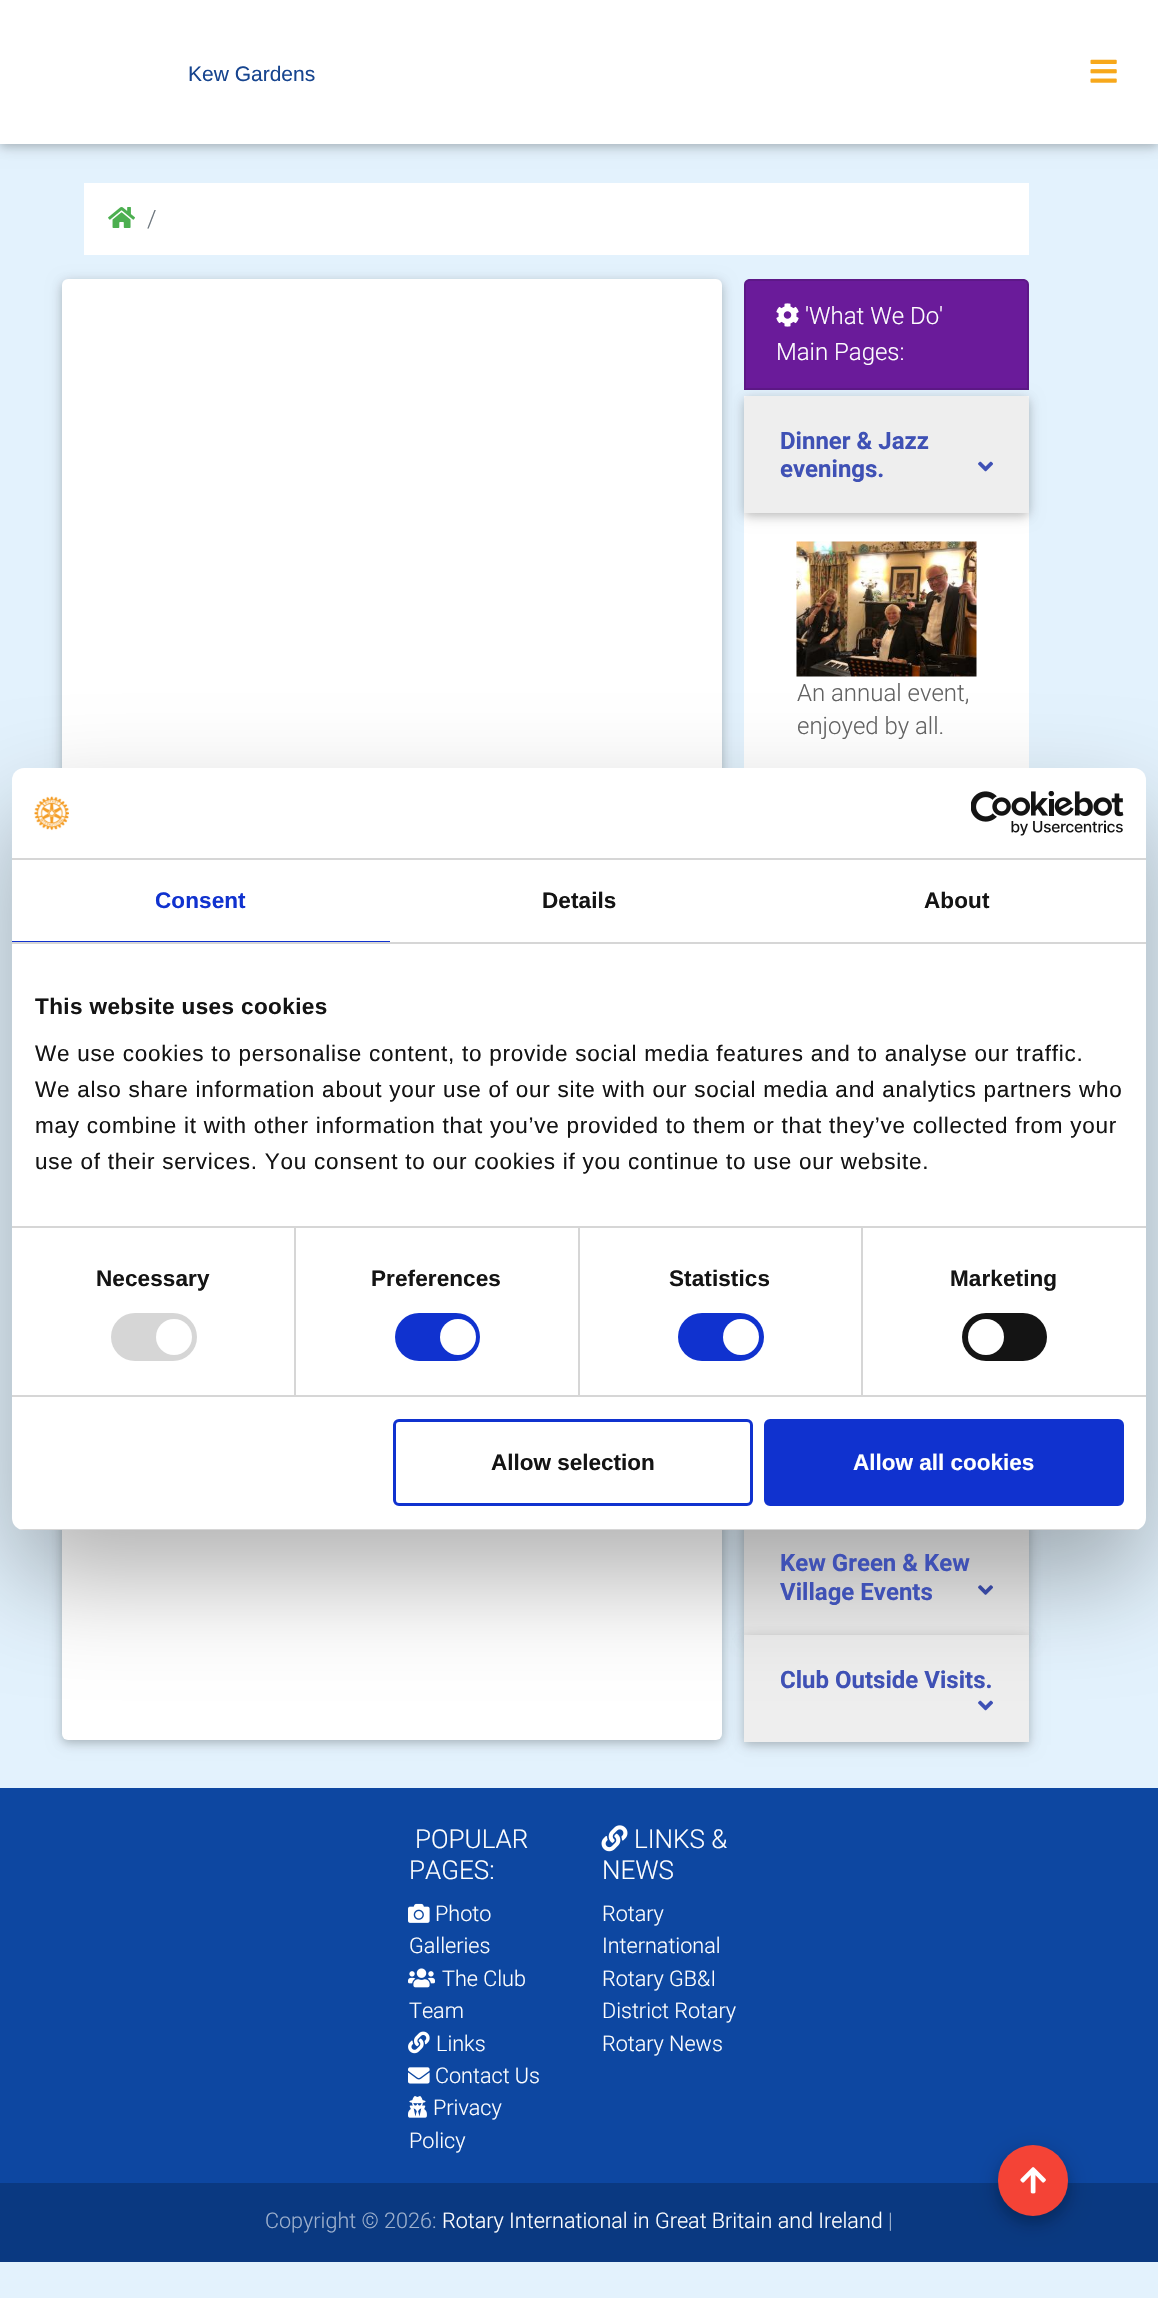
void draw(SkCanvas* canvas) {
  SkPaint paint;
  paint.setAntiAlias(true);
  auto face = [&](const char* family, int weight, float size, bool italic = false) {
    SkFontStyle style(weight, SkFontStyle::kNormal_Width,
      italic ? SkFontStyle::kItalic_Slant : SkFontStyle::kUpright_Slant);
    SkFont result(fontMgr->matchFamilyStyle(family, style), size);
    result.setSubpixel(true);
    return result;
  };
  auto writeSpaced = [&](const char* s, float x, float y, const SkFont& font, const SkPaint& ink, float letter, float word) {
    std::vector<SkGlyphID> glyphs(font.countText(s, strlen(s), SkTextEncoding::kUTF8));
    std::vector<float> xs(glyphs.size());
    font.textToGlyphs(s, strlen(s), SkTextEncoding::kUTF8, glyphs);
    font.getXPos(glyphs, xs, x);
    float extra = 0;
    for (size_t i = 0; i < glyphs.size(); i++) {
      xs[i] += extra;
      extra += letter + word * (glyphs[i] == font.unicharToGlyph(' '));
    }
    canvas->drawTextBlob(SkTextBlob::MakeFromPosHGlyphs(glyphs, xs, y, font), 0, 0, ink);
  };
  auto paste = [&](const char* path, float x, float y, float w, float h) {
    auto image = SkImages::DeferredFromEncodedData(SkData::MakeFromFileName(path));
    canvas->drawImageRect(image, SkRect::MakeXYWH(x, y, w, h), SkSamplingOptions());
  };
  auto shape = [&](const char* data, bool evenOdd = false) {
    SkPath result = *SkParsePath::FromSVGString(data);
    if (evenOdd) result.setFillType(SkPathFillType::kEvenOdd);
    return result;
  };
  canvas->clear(0xffe3f2fd);
  paint.setColor(0x1f000000);
  paint.setMaskFilter(SkMaskFilter::MakeBlur(kNormal_SkBlurStyle, 7.5f));
  canvas->drawRect(SkRect::MakeXYWH(0, 3, 1158, 144), paint);
  paint.setMaskFilter(nullptr);
  paint.setColor(0x29000000);
  paint.setMaskFilter(SkMaskFilter::MakeBlur(kNormal_SkBlurStyle, 4));
  canvas->drawRect(SkRect::MakeXYWH(0, 3, 1158, 144), paint);
  paint.setMaskFilter(nullptr);
  paint.setColor(0xffffffff);
  canvas->drawRect(SkRect::MakeXYWH(0, 0, 1158, 144), paint);
  paste("img/1.png", 1090, 59, 27, 24);
  canvas->drawRect(SkRect::MakeXYWH(84, 183, 945, 72), paint);
  paste("img/2.png", 108, 207, 27, 21);
  paint.setColor(0x1f000000);
  paint.setMaskFilter(SkMaskFilter::MakeBlur(kNormal_SkBlurStyle, 7.5f));
  canvas->drawRoundRect(SkRect::MakeXYWH(62, 282, 660, 1461), 6, 6, paint);
  paint.setMaskFilter(nullptr);
  paint.setColor(0x29000000);
  paint.setMaskFilter(SkMaskFilter::MakeBlur(kNormal_SkBlurStyle, 4));
  canvas->drawRoundRect(SkRect::MakeXYWH(62, 282, 660, 1461), 6, 6, paint);
  paint.setMaskFilter(nullptr);
  paint.setColor(0xffffffff);
  canvas->drawRoundRect(SkRect::MakeXYWH(62, 279, 660, 1461), 6, 6, paint);
  paint.setColor(0xff6a1b9a);
  canvas->drawPath(shape("M750 279H1023C1026.5 279 1029 281.5 1029 285V390H744V285C744 281.5 746.5 279 750 279Z"), paint);
  paint.setStroke(true);
  paint.setStrokeWidth(2);
  paint.setColor(0x1f000000);
  canvas->drawPath(shape("M750 280H1023C1026 280 1028 282 1028 285V389H745V285C745 282 747 280 750 280Z"), paint);
  paste("img/3.png", 776, 303, 23, 24);
  paint.setStroke(false);
  paint.setColor(0xffffffff);
  canvas->drawRect(SkRect::MakeXYWH(744, 396, 285, 372), paint);
  paint.setColor(0x1f000000);
  paint.setMaskFilter(SkMaskFilter::MakeBlur(kNormal_SkBlurStyle, 7.5f));
  canvas->drawRoundRect(SkRect::MakeXYWH(744, 399, 285, 117), 5, 5, paint);
  paint.setMaskFilter(nullptr);
  paint.setColor(0x29000000);
  paint.setMaskFilter(SkMaskFilter::MakeBlur(kNormal_SkBlurStyle, 4));
  canvas->drawRoundRect(SkRect::MakeXYWH(744, 399, 285, 117), 5, 5, paint);
  paint.setMaskFilter(nullptr);
  paint.setColor(0xffeeeeee);
  canvas->drawPath(shape("M749 396H1024C1027 396 1029 398 1029 401V513H744V401C744 398 746 396 749 396Z"), paint);
  paste("img/4.png", 978, 461, 15, 11);
  paste("img/5.png", 796, 541, 181, 136);
  paint.setColor(0x1f000000);
  paint.setMaskFilter(SkMaskFilter::MakeBlur(kNormal_SkBlurStyle, 7.5f));
  canvas->drawRect(SkRect::MakeXYWH(744, 1523, 285, 117), paint);
  paint.setMaskFilter(nullptr);
  paint.setColor(0x29000000);
  paint.setMaskFilter(SkMaskFilter::MakeBlur(kNormal_SkBlurStyle, 4));
  canvas->drawRect(SkRect::MakeXYWH(744, 1523, 285, 117), paint);
  paint.setMaskFilter(nullptr);
  paint.setColor(0xffeeeeee);
  canvas->drawRect(SkRect::MakeXYWH(744, 1530, 285, 105), paint);
  paste("img/6.png", 978, 1585, 15, 10);
  paint.setColor(0x1f000000);
  paint.setMaskFilter(SkMaskFilter::MakeBlur(kNormal_SkBlurStyle, 7.5f));
  canvas->drawRect(SkRect::MakeXYWH(744, 1638, 285, 107), paint);
  paint.setMaskFilter(nullptr);
  paint.setColor(0x29000000);
  paint.setMaskFilter(SkMaskFilter::MakeBlur(kNormal_SkBlurStyle, 4));
  canvas->drawRect(SkRect::MakeXYWH(744, 1638, 285, 107), paint);
  paint.setMaskFilter(nullptr);
  paint.setColor(0xffeeeeee);
  canvas->drawRect(SkRect::MakeXYWH(744, 1635, 285, 107), paint);
  paste("img/4.png", 978, 1700, 15, 11);
  paint.setColor(0x4d000000);
  paint.setMaskFilter(SkMaskFilter::MakeBlur(kNormal_SkBlurStyle, 51));
  canvas->drawRoundRect(SkRect::MakeXYWH(12, 816, 1134, 762), 12, 12, paint);
  paint.setMaskFilter(nullptr);
  paint.setColor(0xffffffff);
  canvas->drawRoundRect(SkRect::MakeXYWH(12, 768, 1134, 762), 12, 12, paint);
  paint.setColor(0xffd6d6d6);
  canvas->drawRect(SkRect::MakeXYWH(12, 858, 1134, 2), paint);
  paste("img/7.png", 34, 796, 35, 35);
  paste("img/8.png", 971, 791, 153, 45);
  {
    const struct { float x, y, w, h; SkColor color; } items[] = {
      {12, 942, 1134, 2, 0xffd6d6d6},
      {12, 941, 378, 1, 0xff1032cf},
      {294, 1227, 2, 168, 0xffd6d6d6},
      {578, 1227, 2, 168, 0xffd6d6d6},
      {861, 1227, 2, 168, 0xffd6d6d6},
      {12, 1226, 1134, 2, 0xffd6d6d6},
      {12, 1395, 1134, 2, 0xffd6d6d6},
    };
    for (auto [x, y, w, h, color] : items) {
      paint.setColor(color);
      canvas->drawRect(SkRect::MakeXYWH(x, y, w, h), paint);
    }
  }
  canvas->drawRoundRect(SkRect::MakeXYWH(111, 1313, 86, 48), 24, 24, paint);
  paint.setColor(0xffffffff);
  canvas->drawCircle(174, 1337, 18, paint);
  paint.setColor(0xff1032cf);
  canvas->drawRoundRect(SkRect::MakeXYWH(395, 1313, 85, 48), 24, 24, paint);
  paint.setColor(0xffffffff);
  canvas->drawCircle(458, 1337, 18, paint);
  paint.setColor(0xff1032cf);
  canvas->drawRoundRect(SkRect::MakeXYWH(678, 1313, 86, 48), 24, 24, paint);
  paint.setColor(0xffffffff);
  canvas->drawCircle(741, 1337, 18, paint);
  paint.setColor(0xff141414);
  canvas->drawRoundRect(SkRect::MakeXYWH(962, 1313, 85, 48), 24, 24, paint);
  paint.setColor(0xffffffff);
  canvas->drawCircle(986, 1337, 18, paint);
  canvas->save();
  canvas->clipPath(shape("M24 768H1134C1140.5 768 1146 773.5 1146 780V1518C1146 1524.5 1140.5 1530 1134 1530H24C17.5 1530 12 1524.5 12 1518V780C12 773.5 17.5 768 24 768Z"), true);
  paint.setColor(0xffd6d6d6);
  canvas->drawRect(SkRect::MakeXYWH(12, 1529, 1134, 1), paint);
  canvas->restore();
  paint.setStroke(true);
  paint.setStrokeWidth(3);
  paint.setColor(0xff1032cf);
  canvas->drawRoundRect(SkRect::MakeXYWH(394.5f, 1420.5f, 357, 84), 4.5f, 4.5f, paint);
  paint.setStroke(false);
  canvas->drawRoundRect(SkRect::MakeXYWH(765.5f, 1420.5f, 357, 84), 4.5f, 4.5f, paint);
  paint.setStroke(true);
  canvas->drawRoundRect(SkRect::MakeXYWH(765.5f, 1420.5f, 357, 84), 4.5f, 4.5f, paint);
  paint.setStroke(false);
  paint.setColor(0xff0d47a1);
  canvas->drawRect(SkRect::MakeXYWH(0, 1788, 1158, 395), paint);
  paste("img/9.png", 408, 1903, 22, 20);
  paste("img/10.png", 408, 1968, 27, 20);
  paste("img/11.png", 408, 2031, 22, 23);
  paste("img/12.png", 408, 2067, 22, 17);
  paste("img/13.png", 408, 2096, 19, 22);
  paste("img/14.png", 601, 1825, 27, 27);
  paint.setColor(0xff0a3981);
  canvas->drawRect(SkRect::MakeXYWH(0, 2183, 1158, 79), paint);
  paint.setColor(0x26000000);
  paint.setMaskFilter(SkMaskFilter::MakeBlur(kNormal_SkBlurStyle, 11));
  canvas->drawRoundRect(SkRect::MakeXYWH(998, 2151, 70, 71), 35, 35, paint);
  paint.setMaskFilter(nullptr);
  paint.setColor(0x2e000000);
  paint.setMaskFilter(SkMaskFilter::MakeBlur(kNormal_SkBlurStyle, 8));
  canvas->drawRoundRect(SkRect::MakeXYWH(998, 2153, 70, 70), 35, 35, paint);
  paint.setMaskFilter(nullptr);
  paint.setColor(0xfff44336);
  canvas->drawRoundRect(SkRect::MakeXYWH(998, 2145, 70, 71), 35, 35, paint);
  paste("img/15.png", 1020, 2167, 26, 27);
  auto f0 = face("Liberation Sans", 400, 21);
  paint.setColor(0xff17458f);
  canvas->drawString("Kew Gardens", 188, 81, f0, paint);
  auto f1 = face("Roboto", 300, 24);
  paint.setColor(0xff6c757d);
  canvas->drawString("/", 147, 227, f1, paint);
  paint.setColor(0xffffffff);
  canvas->drawString("'What We Do'", 805, 324, f1, paint);
  canvas->drawString("Main Pages:", 776, 360, f1, paint);
  auto f2 = face("Roboto", 700, 24);
  paint.setColor(0xff3f51b5);
  canvas->drawString("Dinner & Jazz", 780, 449, f2, paint);
  canvas->drawString("evenings.", 780, 477, f2, paint);
  paint.setColor(0xff626262);
  canvas->drawString("An annual event,", 797, 701, f1, paint);
  canvas->drawString("enjoyed by all.", 797, 734, f1, paint);
  paint.setColor(0xff3f51b5);
  {
    const struct { const char* s; float x, y; } items[] = {
      {"Kew Green & Kew", 780, 1571},
      {"Village Events", 780, 1600},
      {"Club Outside Visits.", 780, 1688},
    };
    for (auto [s, x, y] : items) {
      canvas->drawString(s, x, y, f2, paint);
    }
  }
  auto f3 = face("Liberation Sans", 700, 22.5f);
  paint.setColor(0xff1032cf);
  writeSpaced("Consent", 155, 908, f3, paint, 0.1f, 0);
  paint.setColor(0xff141414);
  writeSpaced("Details", 542, 908, f3, paint, 0.1f, 0);
  writeSpaced("About", 924, 908, f3, paint, 0.1f, 0);
  writeSpaced("This website uses cookies", 35, 1014, f3, paint, 0.4f, 0);
  auto f4 = face("Liberation Sans", 400, 22.5f);
  {
    const struct { const char* s; float x, y; } items[] = {
      {"We use cookies to personalise content, to provide social media features and to analyse our traffic.", 35, 1061},
      {"We also share information about your use of our site with our social media and analytics partners who", 35, 1097},
      {"may combine it with other information that you’ve provided to them or that they’ve collected from your", 35, 1133},
      {"use of their services. You consent to our cookies if you continue to use our website.", 35, 1169},
    };
    for (auto [s, x, y] : items) {
      writeSpaced(s, x, y, f4, paint, 0.75f, 0);
    }
  }
  {
    const struct { const char* s; float x, y; } items[] = {
      {"Necessary", 96, 1286},
      {"Preferences", 371, 1286},
      {"Statistics", 669, 1286},
      {"Marketing", 950, 1286},
    };
    for (auto [s, x, y] : items) {
      writeSpaced(s, x, y, f3, paint, 0.1f, 0);
    }
  }
  canvas->drawString("Allow selection", 491, 1470, f3, paint);
  paint.setColor(0xffffffff);
  canvas->drawString("Allow all cookies", 853, 1470, f3, paint);
  auto f5 = face("Roboto", 300, 26);
  canvas->drawString("POPULAR", 415, 1848, f5, paint);
  canvas->drawString("PAGES:", 409, 1879, f5, paint);
  auto f6 = face("Roboto", 300, 21.6f);
  {
    const struct { const char* s; float x, y; } items[] = {
      {"Photo", 435, 1921},
      {"Galleries", 409, 1953},
      {"The Club", 442, 1986},
      {"Team", 409, 2018},
      {"Links", 436, 2051},
      {"Contact Us", 435, 2083},
      {"Privacy", 433, 2115},
      {"Policy", 409, 2148},
    };
    for (auto [s, x, y] : items) {
      canvas->drawString(s, x, y, f6, paint);
    }
  }
  canvas->drawString("LINKS &", 634, 1848, f5, paint);
  canvas->drawString("NEWS", 602, 1879, f5, paint);
  {
    const struct { const char* s; float x, y; } items[] = {
      {"Rotary", 602, 1921},
      {"International", 602, 1953},
      {"Rotary GB&I", 602, 1986},
      {"District Rotary", 602, 2018},
      {"Rotary News", 602, 2051},
    };
    for (auto [s, x, y] : items) {
      canvas->drawString(s, x, y, f6, paint);
    }
  }
  paint.setColor(0xff9db0cd);
  canvas->drawString("Copyright © 2026:", 265, 2228, f6, paint);
  paint.setColor(0xffffffff);
  canvas->drawString("Rotary International in Great Britain and Ireland", 442, 2228, f6, paint);
  paint.setColor(0xff9db0cd);
  canvas->drawString("|", 888, 2228, f6, paint);
}
